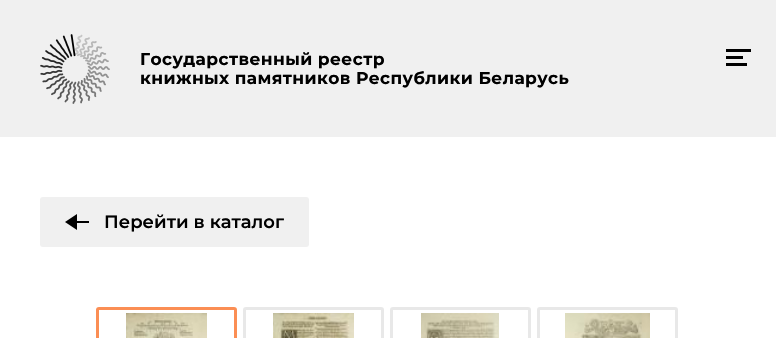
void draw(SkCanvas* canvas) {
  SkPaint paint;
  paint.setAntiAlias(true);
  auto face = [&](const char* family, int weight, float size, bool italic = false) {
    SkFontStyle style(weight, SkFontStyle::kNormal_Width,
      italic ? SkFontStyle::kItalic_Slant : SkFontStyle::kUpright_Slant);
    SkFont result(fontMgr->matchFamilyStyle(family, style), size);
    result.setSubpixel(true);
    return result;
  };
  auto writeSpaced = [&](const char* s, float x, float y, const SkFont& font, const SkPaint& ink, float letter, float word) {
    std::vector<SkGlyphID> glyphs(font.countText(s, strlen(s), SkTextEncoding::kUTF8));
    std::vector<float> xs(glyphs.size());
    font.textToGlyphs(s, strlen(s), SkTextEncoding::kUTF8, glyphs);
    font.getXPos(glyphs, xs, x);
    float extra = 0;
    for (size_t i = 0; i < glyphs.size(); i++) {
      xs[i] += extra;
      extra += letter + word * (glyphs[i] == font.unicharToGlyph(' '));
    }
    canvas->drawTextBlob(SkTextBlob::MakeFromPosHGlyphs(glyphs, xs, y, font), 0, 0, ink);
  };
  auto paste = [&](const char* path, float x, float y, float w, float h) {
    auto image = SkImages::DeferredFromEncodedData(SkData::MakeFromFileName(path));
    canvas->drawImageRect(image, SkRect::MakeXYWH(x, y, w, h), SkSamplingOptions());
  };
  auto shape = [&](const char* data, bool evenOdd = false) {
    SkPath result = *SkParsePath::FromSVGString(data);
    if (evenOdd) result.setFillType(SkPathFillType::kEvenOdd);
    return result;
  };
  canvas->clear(0xffffffff);
  paint.setColor(0xfff0f0f0);
  canvas->drawRect(SkRect::MakeXYWH(0, 0, 776, 137), paint);
  paste("img/1.png", 40, 34, 70, 70);
  {
    const struct { float x, y, w, h; SkColor color; } items[] = {
      {726, 49, 25, 3, 0xff000000},
      {726, 56, 17, 3, 0xff000000},
      {726, 63, 21, 3, 0xff000000},
    };
    for (auto [x, y, w, h, color] : items) {
      paint.setColor(color);
      canvas->drawRect(SkRect::MakeXYWH(x, y, w, h), paint);
    }
  }
  paint.setColor(0xfff0f0f0);
  canvas->drawRoundRect(SkRect::MakeXYWH(40, 197, 269, 50), 3, 3, paint);
  paint.setColor(0xff000000);
  canvas->drawPath(shape("M65 222L77 214V230Z"), paint);
  canvas->drawRect(SkRect::MakeXYWH(77, 221, 12, 2), paint);
  paint.setStroke(true);
  paint.setStrokeWidth(3);
  paint.setColor(0xfffb8e54);
  canvas->drawRoundRect(SkRect::MakeXYWH(97.5f, 308.5f, 138, 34), 1.5f, 1.5f, paint);
  paste("img/2.png", 126, 313, 81, 25);
  paint.setColor(0xffe8e8e8);
  canvas->drawRoundRect(SkRect::MakeXYWH(244.5f, 308.5f, 138, 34), 1.5f, 1.5f, paint);
  paste("img/3.png", 273, 313, 81, 25);
  canvas->drawRoundRect(SkRect::MakeXYWH(391.5f, 308.5f, 138, 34), 1.5f, 1.5f, paint);
  paste("img/4.png", 421, 313, 78, 25);
  canvas->drawRoundRect(SkRect::MakeXYWH(538.5f, 308.5f, 138, 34), 1.5f, 1.5f, paint);
  paste("img/5.png", 565, 313, 85, 25);
  auto f0 = face("Montserrat", 700, 17);
  paint.setStroke(false);
  paint.setColor(0xff000000);
  writeSpaced("Государственный реестр", 140, 65, f0, paint, 0.4f, 0);
  writeSpaced("книжных памятников Республики Беларусь", 140, 84, f0, paint, 0.4f, 0);
  auto f1 = face("Montserrat", 600, 18);
  canvas->drawString("Перейти в каталог", 104, 228, f1, paint);
}
